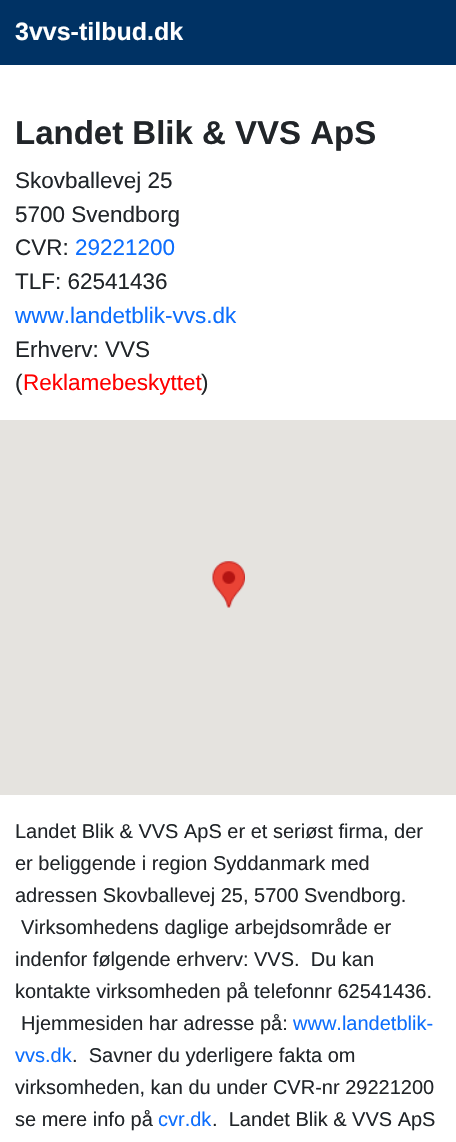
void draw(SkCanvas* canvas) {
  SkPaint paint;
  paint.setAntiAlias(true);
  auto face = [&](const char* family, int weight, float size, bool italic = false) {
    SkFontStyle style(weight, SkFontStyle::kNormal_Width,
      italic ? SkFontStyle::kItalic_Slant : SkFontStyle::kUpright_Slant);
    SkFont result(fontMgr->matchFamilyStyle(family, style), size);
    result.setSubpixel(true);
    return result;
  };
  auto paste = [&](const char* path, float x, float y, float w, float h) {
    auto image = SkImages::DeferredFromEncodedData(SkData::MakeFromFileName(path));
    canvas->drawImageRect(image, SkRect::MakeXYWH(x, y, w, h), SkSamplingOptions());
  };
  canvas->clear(0xffffffff);
  paint.setColor(0xff003264);
  canvas->drawRect(SkRect::MakeXYWH(0, 0, 456, 65), paint);
  paint.setColor(0xffe5e3df);
  canvas->drawRect(SkRect::MakeXYWH(0, 420, 456, 375), paint);
  paste("img/1.png", 212, 561, 33, 47);
  auto f0 = face("Liberation Sans", 700, 25);
  paint.setColor(0xffffffff);
  canvas->drawString("3vvs-tilbud.dk", 15, 40, f0, paint);
  auto f1 = face("Liberation Sans", 700, 33);
  paint.setColor(0xff212529);
  canvas->drawString("Landet Blik & VVS ApS", 15, 144, f1, paint);
  auto f2 = face("Liberation Sans", 400, 22.5f);
  {
    const struct { const char* s; float x, y; } items[] = {
      {"Skovballevej 25", 15, 188},
      {"5700 Svendborg", 15, 222},
      {"CVR:", 15, 255},
    };
    for (auto [s, x, y] : items) {
      canvas->drawString(s, x, y, f2, paint);
    }
  }
  paint.setColor(0xff0d6efd);
  canvas->drawString("29221200", 75, 255, f2, paint);
  paint.setColor(0xff212529);
  canvas->drawString("TLF: 62541436", 15, 289, f2, paint);
  paint.setColor(0xff0d6efd);
  canvas->drawString("www.landetblik-vvs.dk", 15, 323, f2, paint);
  paint.setColor(0xff212529);
  canvas->drawString("Erhverv: VVS", 15, 357, f2, paint);
  canvas->drawString("(", 15, 390, f2, paint);
  paint.setColor(0xffff0000);
  canvas->drawString("Reklamebeskyttet", 23, 390, f2, paint);
  paint.setColor(0xff212529);
  canvas->drawString(")", 201, 390, f2, paint);
  auto f3 = face("Liberation Sans", 400, 20);
  {
    const struct { const char* s; float x, y; } items[] = {
      {"Landet Blik & VVS ApS er et seriøst firma, der", 15, 838},
      {"er beliggende i region Syddanmark med", 15, 870},
      {"adressen Skovballevej 25, 5700 Svendborg.", 15, 902},
      {"Virksomhedens daglige arbejdsområde er", 21, 934},
      {"indenfor følgende erhverv: VVS.  Du kan", 15, 966},
      {"kontakte virksomheden på telefonnr 62541436.", 15, 998},
      {"Hjemmesiden har adresse på:", 21, 1030},
    };
    for (auto [s, x, y] : items) {
      canvas->drawString(s, x, y, f3, paint);
    }
  }
  paint.setColor(0xff0d6efd);
  canvas->drawString("www.landetblik-", 293, 1030, f3, paint);
  canvas->drawString("vvs.dk", 15, 1062, f3, paint);
  paint.setColor(0xff212529);
  {
    const struct { const char* s; float x, y; } items[] = {
      {".  Savner du yderligere fakta om", 72, 1062},
      {"virksomheden, kan du under CVR-nr 29221200", 15, 1094},
      {"se mere info på", 15, 1126},
    };
    for (auto [s, x, y] : items) {
      canvas->drawString(s, x, y, f3, paint);
    }
  }
  paint.setColor(0xff0d6efd);
  canvas->drawString("cvr.dk", 158, 1126, f3, paint);
  paint.setColor(0xff212529);
  canvas->drawString(".  Landet Blik & VVS ApS", 212, 1126, f3, paint);
}
